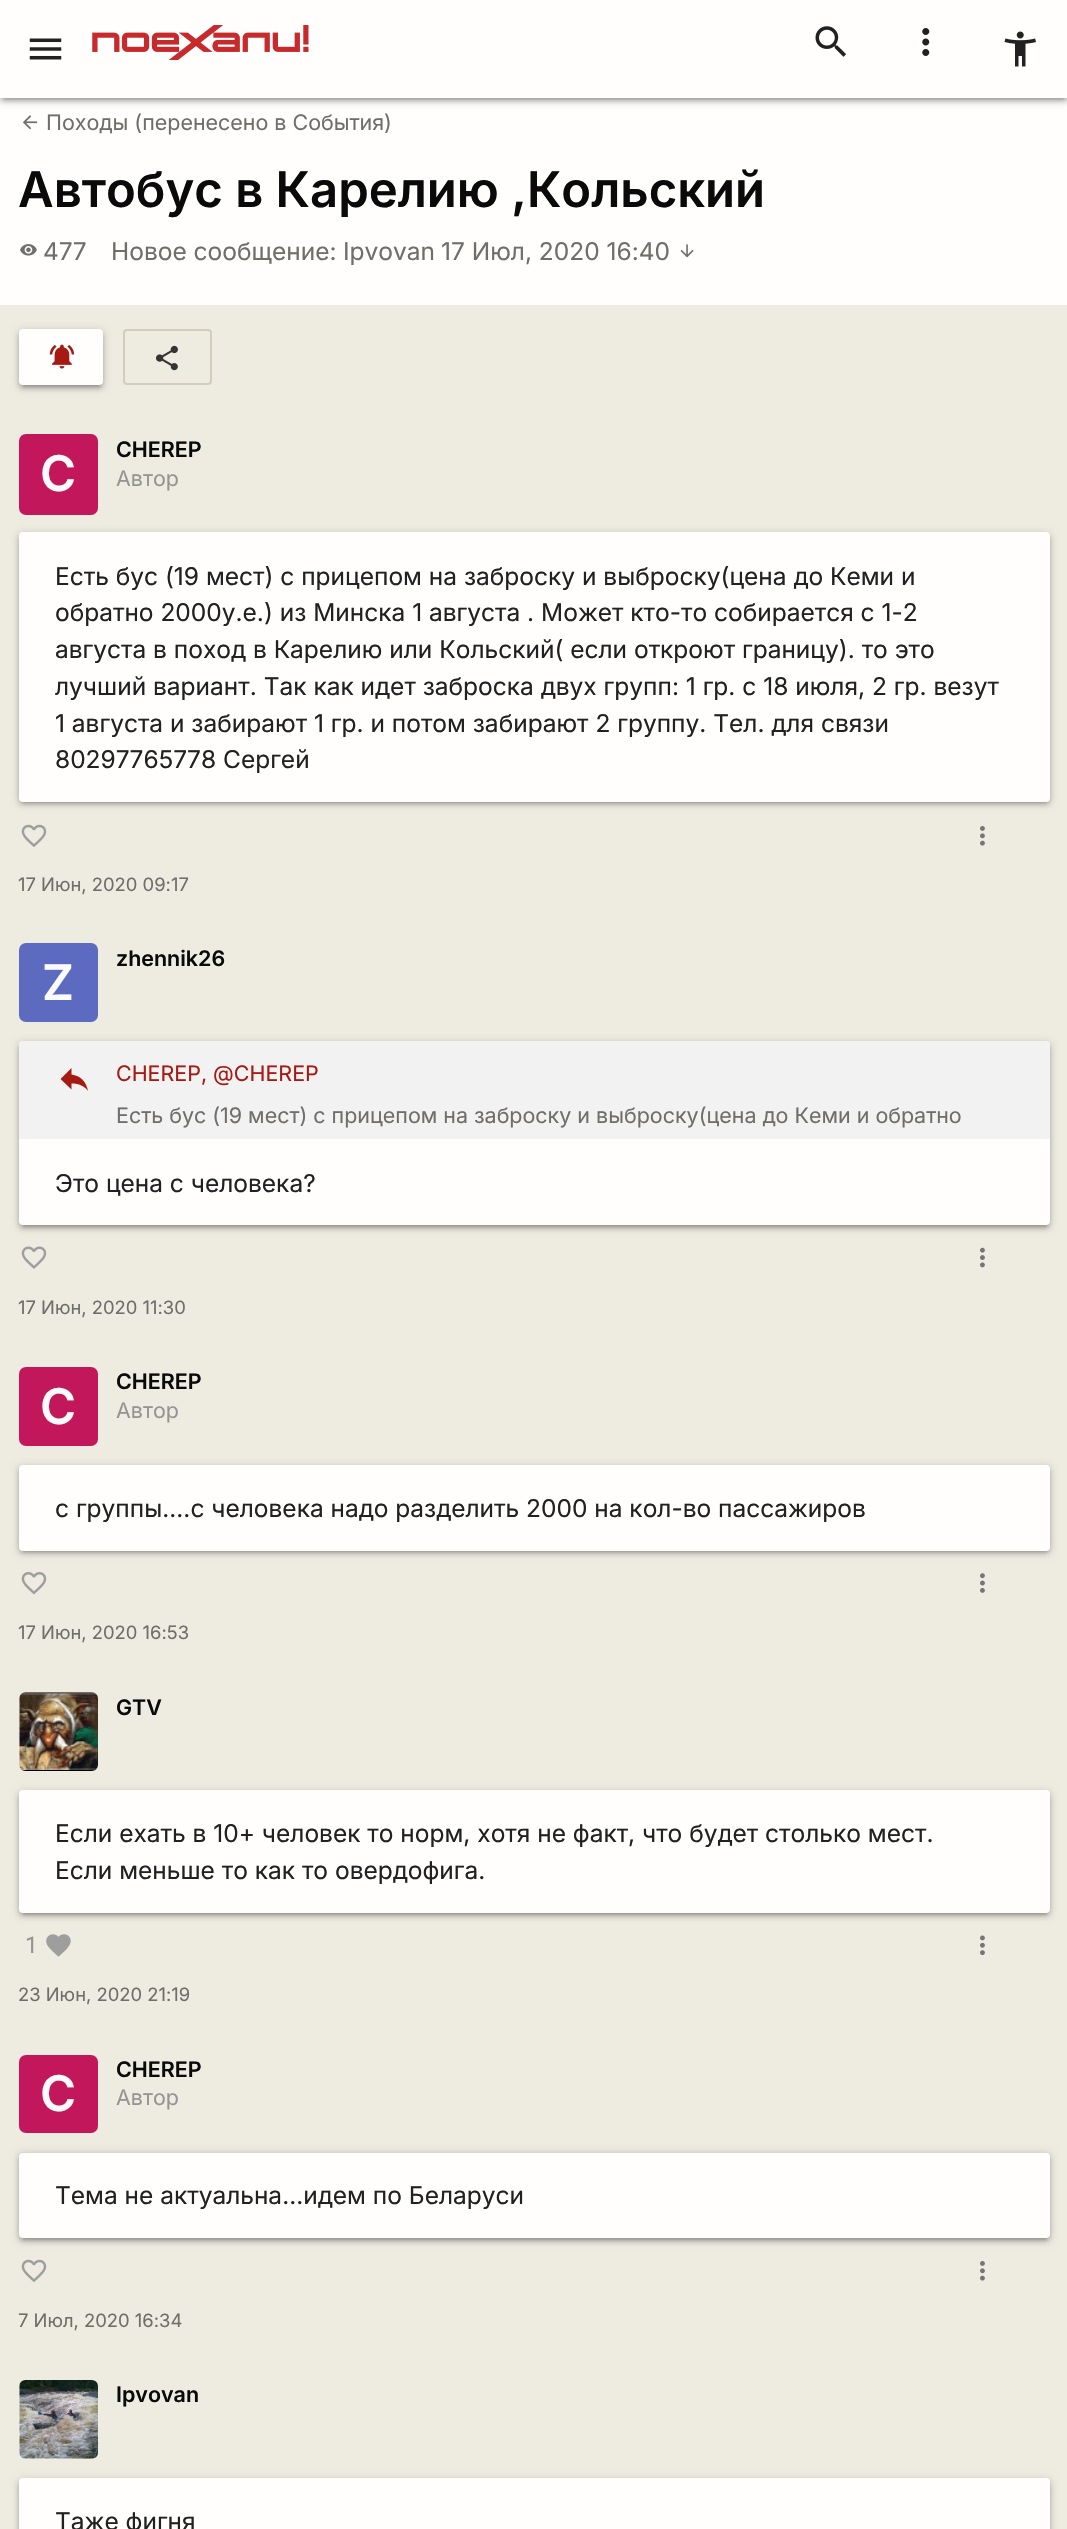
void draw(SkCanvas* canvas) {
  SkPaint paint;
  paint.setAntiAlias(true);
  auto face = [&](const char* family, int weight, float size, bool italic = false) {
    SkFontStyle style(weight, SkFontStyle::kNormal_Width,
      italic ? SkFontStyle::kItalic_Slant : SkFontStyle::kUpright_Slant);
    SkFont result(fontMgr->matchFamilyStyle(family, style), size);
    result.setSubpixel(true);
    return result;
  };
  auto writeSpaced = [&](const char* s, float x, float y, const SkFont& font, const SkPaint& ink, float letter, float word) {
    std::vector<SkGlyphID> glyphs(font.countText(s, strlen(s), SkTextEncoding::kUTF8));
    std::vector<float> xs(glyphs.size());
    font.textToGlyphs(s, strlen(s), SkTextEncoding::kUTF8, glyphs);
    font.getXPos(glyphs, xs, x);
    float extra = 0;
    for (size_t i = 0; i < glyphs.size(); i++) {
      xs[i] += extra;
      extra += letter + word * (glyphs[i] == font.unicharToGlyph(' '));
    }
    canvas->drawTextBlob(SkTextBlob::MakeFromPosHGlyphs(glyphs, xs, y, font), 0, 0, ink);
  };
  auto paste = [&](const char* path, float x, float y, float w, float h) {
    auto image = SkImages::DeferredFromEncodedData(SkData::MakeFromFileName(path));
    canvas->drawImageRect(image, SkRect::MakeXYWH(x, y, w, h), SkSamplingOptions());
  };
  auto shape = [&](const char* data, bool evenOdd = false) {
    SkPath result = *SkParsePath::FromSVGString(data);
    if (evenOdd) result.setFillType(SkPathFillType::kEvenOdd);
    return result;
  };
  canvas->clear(0xffeeebe1);
  paint.setColor(0xfffffefc);
  canvas->drawRect(SkRect::MakeXYWH(0, 98, 1067, 207), paint);
  paint.setColor(0x33000000);
  paint.setMaskFilter(SkMaskFilter::MakeBlur(kNormal_SkBlurStyle, 4.5f));
  canvas->drawRect(SkRect::MakeXYWH(0, 2, 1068, 98), paint);
  paint.setMaskFilter(nullptr);
  paint.setColor(0x1f000000);
  paint.setMaskFilter(SkMaskFilter::MakeBlur(kNormal_SkBlurStyle, 1));
  canvas->drawRect(SkRect::MakeXYWH(4, 9, 1060, 91), paint);
  paint.setMaskFilter(nullptr);
  paint.setColor(0x24000000);
  paint.setMaskFilter(SkMaskFilter::MakeBlur(kNormal_SkBlurStyle, 2));
  canvas->drawRect(SkRect::MakeXYWH(0, 4, 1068, 98), paint);
  paint.setMaskFilter(nullptr);
  paint.setColor(0xfffffefc);
  canvas->drawRect(SkRect::MakeXYWH(0, 0, 1067, 98), paint);
  paste("img/1.png", 29, 38, 33, 22);
  paste("img/2.png", 92, 25, 217, 35);
  paste("img/3.png", 815, 26, 31, 31);
  paste("img/4.png", 922, 28, 8, 28);
  paste("img/5.png", 1004, 31, 32, 36);
  paste("img/6.png", 22, 115, 16, 15);
  paste("img/7.png", 20, 244, 17, 12);
  paste("img/8.png", 680, 244, 14, 14);
  paint.setColor(0x33000000);
  paint.setMaskFilter(SkMaskFilter::MakeBlur(kNormal_SkBlurStyle, 4.5f));
  canvas->drawRoundRect(SkRect::MakeXYWH(19, 331, 84, 56), 4, 4, paint);
  paint.setMaskFilter(nullptr);
  paint.setColor(0x1f000000);
  paint.setMaskFilter(SkMaskFilter::MakeBlur(kNormal_SkBlurStyle, 1));
  canvas->drawRect(SkRect::MakeXYWH(23, 338, 77, 49), paint);
  paint.setMaskFilter(nullptr);
  paint.setColor(0x24000000);
  paint.setMaskFilter(SkMaskFilter::MakeBlur(kNormal_SkBlurStyle, 2));
  canvas->drawRoundRect(SkRect::MakeXYWH(19, 333, 84, 56), 4, 4, paint);
  paint.setMaskFilter(nullptr);
  paint.setColor(0xfffffefc);
  canvas->drawRoundRect(SkRect::MakeXYWH(19, 329, 84, 56), 4, 4, paint);
  paste("img/9.png", 49, 344, 26, 25);
  paint.setStroke(true);
  paint.setStrokeWidth(2);
  paint.setColor(0xffd2cdbc);
  canvas->drawRoundRect(SkRect::MakeXYWH(124, 330, 87, 54), 3, 3, paint);
  paste("img/10.png", 156, 345, 22, 26);
  paint.setStroke(false);
  paint.setColor(0xffc2185b);
  canvas->drawRoundRect(SkRect::MakeXYWH(19, 434, 79, 81), 7, 7, paint);
  paint.setColor(0x33000000);
  paint.setMaskFilter(SkMaskFilter::MakeBlur(kNormal_SkBlurStyle, 4.5f));
  canvas->drawRoundRect(SkRect::MakeXYWH(19, 534, 1031, 269), 4, 4, paint);
  paint.setMaskFilter(nullptr);
  paint.setColor(0x1f000000);
  paint.setMaskFilter(SkMaskFilter::MakeBlur(kNormal_SkBlurStyle, 1));
  canvas->drawRect(SkRect::MakeXYWH(23, 541, 1024, 262), paint);
  paint.setMaskFilter(nullptr);
  paint.setColor(0x24000000);
  paint.setMaskFilter(SkMaskFilter::MakeBlur(kNormal_SkBlurStyle, 2));
  canvas->drawRoundRect(SkRect::MakeXYWH(19, 536, 1031, 269), 4, 4, paint);
  paint.setMaskFilter(nullptr);
  paint.setColor(0xfffffefc);
  canvas->drawRoundRect(SkRect::MakeXYWH(19, 532, 1031, 270), 4, 4, paint);
  paste("img/11.png", 980, 826, 5, 20);
  paste("img/12.png", 21, 824, 26, 23);
  paint.setColor(0xff5c6bc0);
  canvas->drawRoundRect(SkRect::MakeXYWH(19, 943, 79, 79), 7, 7, paint);
  paint.setColor(0x33000000);
  paint.setMaskFilter(SkMaskFilter::MakeBlur(kNormal_SkBlurStyle, 4.5f));
  canvas->drawRoundRect(SkRect::MakeXYWH(19, 1043, 1031, 184), 4, 4, paint);
  paint.setMaskFilter(nullptr);
  paint.setColor(0x1f000000);
  paint.setMaskFilter(SkMaskFilter::MakeBlur(kNormal_SkBlurStyle, 1));
  canvas->drawRect(SkRect::MakeXYWH(23, 1050, 1024, 177), paint);
  paint.setMaskFilter(nullptr);
  paint.setColor(0x24000000);
  paint.setMaskFilter(SkMaskFilter::MakeBlur(kNormal_SkBlurStyle, 2));
  canvas->drawRoundRect(SkRect::MakeXYWH(19, 1045, 1031, 184), 4, 4, paint);
  paint.setMaskFilter(nullptr);
  paint.setColor(0xfffffefc);
  canvas->drawRoundRect(SkRect::MakeXYWH(19, 1041, 1031, 184), 4, 4, paint);
  paint.setColor(0xfff3f2f2);
  canvas->drawPath(shape("M23 1041H1046C1048 1041 1050 1043 1050 1045V1139H19V1045C19 1043 21 1041 23 1041Z"), paint);
  paint.setColor(0xffa61a14);
  canvas->drawPath(shape("M71.5 1074.5C80.5 1075.5 86.5 1082 88 1091C84.5 1086 79 1083.5 71.5 1083.5V1089.5L60.5 1079L71.5 1068Z"), paint);
  paste("img/13.png", 980, 1247, 5, 21);
  paste("img/14.png", 21, 1246, 26, 23);
  paint.setColor(0xffc2185b);
  canvas->drawRoundRect(SkRect::MakeXYWH(19, 1367, 79, 79), 7, 7, paint);
  paint.setColor(0x33000000);
  paint.setMaskFilter(SkMaskFilter::MakeBlur(kNormal_SkBlurStyle, 4.5f));
  canvas->drawRoundRect(SkRect::MakeXYWH(19, 1467, 1031, 85), 4, 4, paint);
  paint.setMaskFilter(nullptr);
  paint.setColor(0x1f000000);
  paint.setMaskFilter(SkMaskFilter::MakeBlur(kNormal_SkBlurStyle, 1));
  canvas->drawRect(SkRect::MakeXYWH(23, 1474, 1024, 78), paint);
  paint.setMaskFilter(nullptr);
  paint.setColor(0x24000000);
  paint.setMaskFilter(SkMaskFilter::MakeBlur(kNormal_SkBlurStyle, 2));
  canvas->drawRoundRect(SkRect::MakeXYWH(19, 1468, 1031, 86), 4, 4, paint);
  paint.setMaskFilter(nullptr);
  paint.setColor(0xfffffefc);
  canvas->drawRoundRect(SkRect::MakeXYWH(19, 1465, 1031, 86), 4, 4, paint);
  paste("img/15.png", 980, 1573, 5, 20);
  paste("img/16.png", 21, 1572, 26, 23);
  canvas->drawRoundRect(SkRect::MakeXYWH(19, 1692, 79, 79), 7, 7, paint);
  paste("img/17.png", 19, 1692, 79, 79);
  paint.setColor(0x33000000);
  paint.setMaskFilter(SkMaskFilter::MakeBlur(kNormal_SkBlurStyle, 4.5f));
  canvas->drawRoundRect(SkRect::MakeXYWH(19, 1792, 1031, 123), 4, 4, paint);
  paint.setMaskFilter(nullptr);
  paint.setColor(0x1f000000);
  paint.setMaskFilter(SkMaskFilter::MakeBlur(kNormal_SkBlurStyle, 1));
  canvas->drawRect(SkRect::MakeXYWH(23, 1799, 1024, 116), paint);
  paint.setMaskFilter(nullptr);
  paint.setColor(0x24000000);
  paint.setMaskFilter(SkMaskFilter::MakeBlur(kNormal_SkBlurStyle, 2));
  canvas->drawRoundRect(SkRect::MakeXYWH(19, 1794, 1031, 122), 4, 4, paint);
  paint.setMaskFilter(nullptr);
  paint.setColor(0xfffffefc);
  canvas->drawRoundRect(SkRect::MakeXYWH(19, 1790, 1031, 123), 4, 4, paint);
  paste("img/18.png", 46, 1934, 25, 23);
  paste("img/19.png", 980, 1935, 5, 21);
  paint.setColor(0xffc2185b);
  canvas->drawRoundRect(SkRect::MakeXYWH(19, 2055, 79, 78), 7, 7, paint);
  paint.setColor(0x33000000);
  paint.setMaskFilter(SkMaskFilter::MakeBlur(kNormal_SkBlurStyle, 4.5f));
  canvas->drawRoundRect(SkRect::MakeXYWH(19, 2154, 1031, 86), 4, 4, paint);
  paint.setMaskFilter(nullptr);
  paint.setColor(0x1f000000);
  paint.setMaskFilter(SkMaskFilter::MakeBlur(kNormal_SkBlurStyle, 1));
  canvas->drawRect(SkRect::MakeXYWH(23, 2161, 1024, 79), paint);
  paint.setMaskFilter(nullptr);
  paint.setColor(0x24000000);
  paint.setMaskFilter(SkMaskFilter::MakeBlur(kNormal_SkBlurStyle, 2));
  canvas->drawRoundRect(SkRect::MakeXYWH(19, 2156, 1031, 86), 4, 4, paint);
  paint.setMaskFilter(nullptr);
  paint.setColor(0xfffffefc);
  canvas->drawRoundRect(SkRect::MakeXYWH(19, 2153, 1031, 85), 4, 4, paint);
  paste("img/11.png", 980, 2261, 5, 20);
  paste("img/12.png", 21, 2259, 26, 23);
  canvas->drawRoundRect(SkRect::MakeXYWH(19, 2380, 79, 79), 7, 7, paint);
  paste("img/20.png", 19, 2380, 79, 79);
  paint.setColor(0x33000000);
  paint.setMaskFilter(SkMaskFilter::MakeBlur(kNormal_SkBlurStyle, 4.5f));
  canvas->drawRoundRect(SkRect::MakeXYWH(19, 2480, 1031, 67), 4, 4, paint);
  paint.setMaskFilter(nullptr);
  paint.setColor(0x24000000);
  paint.setMaskFilter(SkMaskFilter::MakeBlur(kNormal_SkBlurStyle, 2));
  canvas->drawRoundRect(SkRect::MakeXYWH(19, 2482, 1031, 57), 4, 4, paint);
  paint.setMaskFilter(nullptr);
  paint.setColor(0xfffffefc);
  canvas->drawRoundRect(SkRect::MakeXYWH(19, 2478, 1031, 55), 4, 4, paint);
  auto f0 = face("Inter", 400, 21.45f);
  paint.setColor(0xff706e6b);
  canvas->drawString("Походы (перенесено в События)", 46, 130, f0, paint);
  auto f1 = face("Inter", 600, 49);
  paint.setColor(0xff0a0a0a);
  canvas->drawString("Автобус в Карелию ,Кольский", 18, 207, f1, paint);
  auto f2 = face("Inter", 400, 24.5f);
  paint.setColor(0xff706e6b);
  {
    const struct { const char* s; float x, y; } items[] = {
      {"477", 43, 260},
      {"Новое сообщение:", 111, 260},
      {"Ipvovan", 343, 260},
      {"17 Июл, 2020 16:40", 441, 260},
    };
    for (auto [s, x, y] : items) {
      canvas->drawString(s, x, y, f2, paint);
    }
  }
  auto f3 = face("Inter", 600, 21.45f);
  paint.setColor(0xff0a0a0a);
  canvas->drawString("CHEREP", 116, 457, f3, paint);
  paint.setColor(0xfffafafa);
  canvas->drawString("C", 40, 491, f1, paint);
  paint.setColor(0xff969492);
  canvas->drawString("Автор", 116, 486, f0, paint);
  paint.setColor(0xff212121);
  {
    const struct { const char* s; float x, y; } items[] = {
      {"Есть бус (19 мест) с прицепом на заброску и выброску(цена до Кеми и", 55, 585},
      {"обратно 2000у.е.) из Минска 1 августа . Может кто-то собирается с 1-2", 55, 621},
      {"августа в поход в Карелию или Кольский( если откроют границу). то это", 55, 658},
      {"лучший вариант. Так как идет заброска двух групп: 1 гр. с 18 июля, 2 гр. везут", 55, 695},
      {"1 августа и забирают 1 гр. и потом забирают 2 группу. Тел. для связи", 55, 732},
      {"80297765778 Сергей", 55, 768},
    };
    for (auto [s, x, y] : items) {
      canvas->drawString(s, x, y, f2, paint);
    }
  }
  auto f4 = face("Inter", 400, 18.4f);
  paint.setColor(0xff706e6b);
  canvas->drawString("17 Июн, 2020 09:17", 18, 891, f4, paint);
  paint.setColor(0xff0a0a0a);
  canvas->drawString("zhennik26", 116, 966, f3, paint);
  paint.setColor(0xfffafafa);
  canvas->drawString("Z", 42, 1000, f1, paint);
  paint.setColor(0xffa61a14);
  canvas->drawString("CHEREP, @CHEREP", 116, 1081, f0, paint);
  paint.setColor(0xff706e6b);
  canvas->drawString("Есть бус (19 мест) с прицепом на заброску и выброску(цена до Кеми и обратно", 116, 1123, f0, paint);
  paint.setColor(0xff212121);
  canvas->drawString("Это цена с человека?", 55, 1192, f2, paint);
  paint.setColor(0xff706e6b);
  canvas->drawString("17 Июн, 2020 11:30", 18, 1314, f4, paint);
  paint.setColor(0xff0a0a0a);
  canvas->drawString("CHEREP", 116, 1389, f3, paint);
  paint.setColor(0xfffafafa);
  canvas->drawString("C", 40, 1424, f1, paint);
  paint.setColor(0xff969492);
  canvas->drawString("Автор", 116, 1418, f0, paint);
  paint.setColor(0xff212121);
  canvas->drawString("с группы....с человека надо разделить 2000 на кол-во пассажиров", 55, 1517, f2, paint);
  paint.setColor(0xff706e6b);
  canvas->drawString("17 Июн, 2020 16:53", 18, 1639, f4, paint);
  paint.setColor(0xff0a0a0a);
  canvas->drawString("GTV", 116, 1715, f3, paint);
  paint.setColor(0xff212121);
  canvas->drawString("Если ехать в 10+ человек то норм, хотя не факт, что будет столько мест.", 55, 1842, f2, paint);
  canvas->drawString("Если меньше то как то овердофига.", 55, 1879, f2, paint);
  auto f5 = face("Roboto", 400, 23);
  paint.setColor(0xff969492);
  writeSpaced("1", 25, 1953, f5, paint, 1, 0);
  paint.setColor(0xff706e6b);
  canvas->drawString("23 Июн, 2020 21:19", 18, 2001, f4, paint);
  paint.setColor(0xff0a0a0a);
  canvas->drawString("CHEREP", 116, 2077, f3, paint);
  paint.setColor(0xfffafafa);
  canvas->drawString("C", 40, 2111, f1, paint);
  paint.setColor(0xff969492);
  canvas->drawString("Автор", 116, 2105, f0, paint);
  paint.setColor(0xff212121);
  canvas->drawString("Тема не актуальна...идем по Беларуси", 55, 2204, f2, paint);
  paint.setColor(0xff706e6b);
  canvas->drawString("7 Июл, 2020 16:34", 18, 2327, f4, paint);
  paint.setColor(0xff0a0a0a);
  canvas->drawString("Ipvovan", 116, 2402, f3, paint);
  paint.setColor(0xff212121);
  canvas->drawString("Таже фигня", 55, 2530, f2, paint);
}
